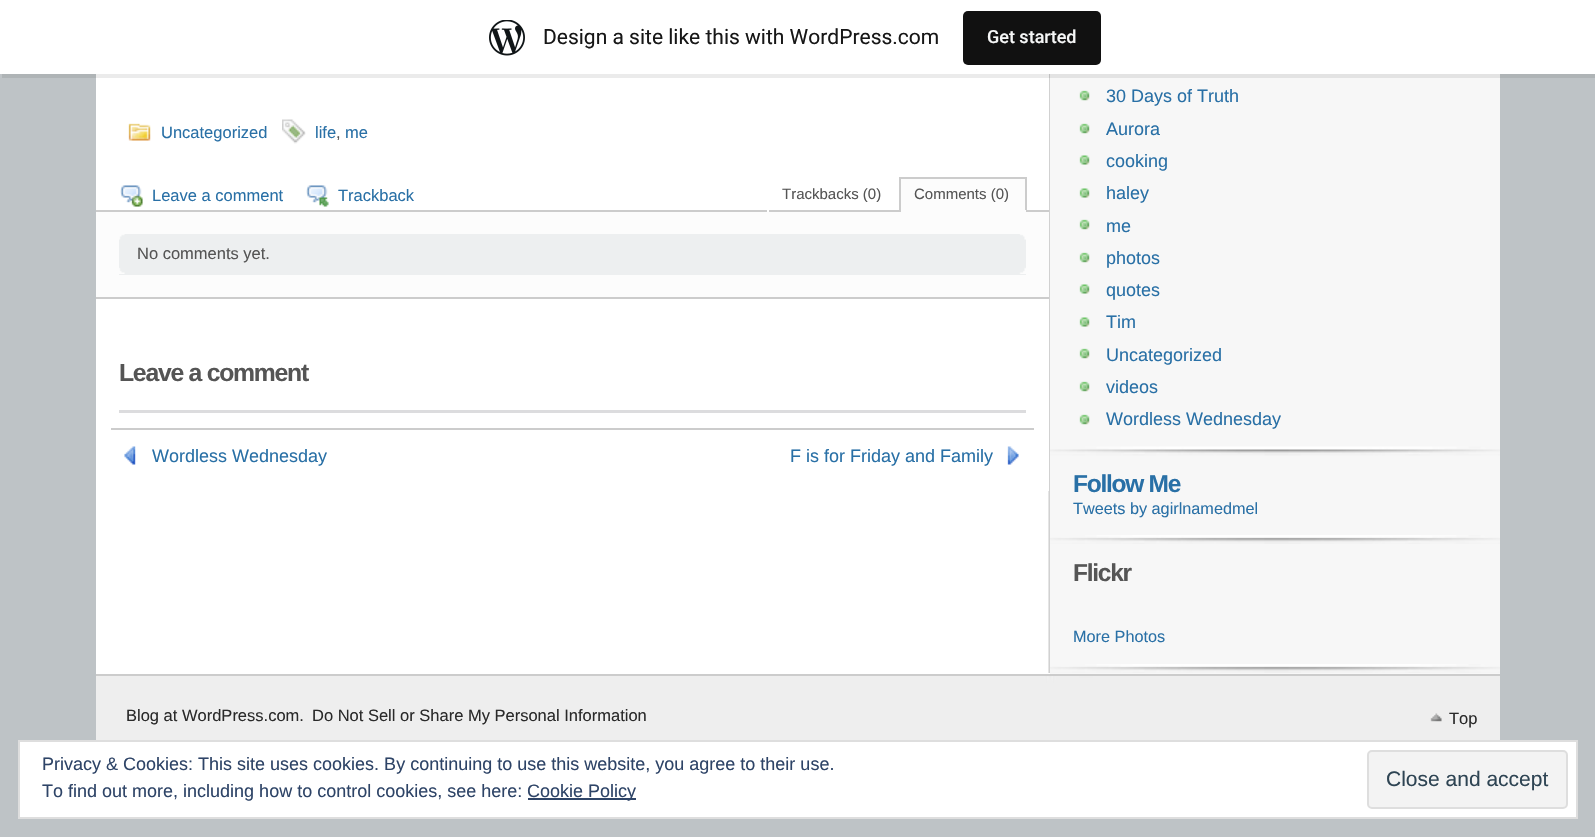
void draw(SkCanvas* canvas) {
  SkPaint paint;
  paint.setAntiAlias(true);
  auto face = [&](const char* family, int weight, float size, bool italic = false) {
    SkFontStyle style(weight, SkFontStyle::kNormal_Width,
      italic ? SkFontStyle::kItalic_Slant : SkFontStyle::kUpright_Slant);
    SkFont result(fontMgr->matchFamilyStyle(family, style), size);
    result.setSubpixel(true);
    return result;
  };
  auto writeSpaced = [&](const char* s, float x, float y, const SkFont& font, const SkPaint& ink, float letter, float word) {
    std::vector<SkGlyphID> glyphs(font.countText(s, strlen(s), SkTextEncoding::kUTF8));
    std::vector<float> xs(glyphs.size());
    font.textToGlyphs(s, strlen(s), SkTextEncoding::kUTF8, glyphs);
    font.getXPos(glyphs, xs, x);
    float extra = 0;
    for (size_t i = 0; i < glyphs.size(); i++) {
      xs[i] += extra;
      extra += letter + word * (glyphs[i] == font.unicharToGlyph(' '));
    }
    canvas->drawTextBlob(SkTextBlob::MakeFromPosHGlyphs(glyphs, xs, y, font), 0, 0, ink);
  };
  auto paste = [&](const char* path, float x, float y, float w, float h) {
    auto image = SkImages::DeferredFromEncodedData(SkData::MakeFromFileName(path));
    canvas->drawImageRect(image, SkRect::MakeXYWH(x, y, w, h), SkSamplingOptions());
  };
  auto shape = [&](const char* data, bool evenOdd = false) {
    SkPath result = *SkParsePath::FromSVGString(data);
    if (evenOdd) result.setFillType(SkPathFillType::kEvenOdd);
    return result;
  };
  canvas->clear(0xffbec3c6);
  paint.setColor(0xffffffff);
  canvas->drawRect(SkRect::MakeXYWH(96, 491, 954, 183), paint);
  paste("img/2.png", 1048, 74, 2, 599);
  canvas->drawRect(SkRect::MakeXYWH(96, 74, 953, 417), paint);
  paint.setColor(0xfff7f7f7);
  canvas->drawRect(SkRect::MakeXYWH(1050, 74, 450, 600), paint);
  paint.setColor(0x14000000);
  canvas->drawPath(shape("M2 74V78H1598V5H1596V74Z"), paint);
  paint.setColor(0xffffffff);
  canvas->drawRect(SkRect::MakeXYWH(0, 0, 1595, 74), paint);
  paste("img/1.png", 489, 20, 36, 36);
  paint.setColor(0xff111111);
  canvas->drawRoundRect(SkRect::MakeXYWH(963, 11, 138, 54), 5, 5, paint);
  paste("img/3.png", 128, 123, 23, 18);
  paste("img/4.png", 282, 119, 24, 25);
  paste("img/5.png", 120, 185, 23, 22);
  paste("img/6.png", 306, 185, 23, 22);
  {
    const struct { float x, y, w, h; SkColor color; } items[] = {
      {96, 210, 953, 2, 0xffcccccc},
      {897, 210, 2, 2, 0xffffffff},
      {897, 210, 2, 2, 0xffcccccc},
      {767, 210, 2, 2, 0xffffffff},
      {901, 179, 124, 31, 0xfffcfcfc},
      {899, 177, 127, 2, 0xffcccccc},
      {1025, 177, 2, 35, 0xffcccccc},
      {899, 210, 127, 2, 0xfffcfcfc},
      {899, 177, 2, 35, 0xffcccccc},
      {96, 212, 953, 85, 0xfffcfcfc},
      {96, 297, 953, 2, 0xffcccccc},
      {119, 234, 907, 41, 0xffedeff0},
    };
    for (auto [x, y, w, h, color] : items) {
      paint.setColor(color);
      canvas->drawRect(SkRect::MakeXYWH(x, y, w, h), paint);
    }
  }
  paste("img/7.png", 119, 234, 907, 40);
  paint.setColor(0xffdcdcde);
  canvas->drawRect(SkRect::MakeXYWH(119, 410, 907, 3), paint);
  paint.setColor(0xffcccccc);
  canvas->drawRect(SkRect::MakeXYWH(111, 428, 923, 2), paint);
  paste("img/8.png", 124, 446, 12, 19);
  paste("img/9.png", 1007, 446, 12, 19);
  paste("img/10.png", 1050, 446, 450, 10);
  paste("img/11.png", 1079, 90, 11, 11);
  paste("img/11.png", 1079, 123, 11, 11);
  paste("img/12.png", 1079, 155, 11, 10);
  paste("img/12.png", 1079, 188, 11, 10);
  paste("img/11.png", 1079, 219, 11, 11);
  paste("img/11.png", 1079, 252, 11, 11);
  paste("img/12.png", 1079, 284, 11, 10);
  paste("img/12.png", 1079, 317, 11, 10);
  paste("img/11.png", 1079, 348, 11, 11);
  paste("img/11.png", 1079, 381, 11, 11);
  paste("img/11.png", 1079, 414, 11, 11);
  paste("img/13.png", 1050, 535, 450, 9);
  paste("img/13.png", 1050, 664, 450, 9);
  paste("img/14.png", 96, 676, 1404, 64);
  canvas->drawRect(SkRect::MakeXYWH(96, 674, 1404, 2), paint);
  paste("img/15.png", 1430, 713, 12, 9);
  paint.setColor(0xffffffff);
  canvas->drawRect(SkRect::MakeXYWH(19, 741, 1558, 77), paint);
  paint.setStroke(true);
  paint.setStrokeWidth(2);
  paint.setColor(0xffdedede);
  canvas->drawRect(SkRect::MakeXYWH(19, 741, 1558, 77), paint);
  paint.setStroke(false);
  paint.setColor(0xff2e4467);
  canvas->drawRect(SkRect::MakeXYWH(528, 798, 108, 2), paint);
  paint.setColor(0xfff3f3f3);
  canvas->drawRoundRect(SkRect::MakeXYWH(1368, 751, 199, 57), 4, 4, paint);
  paint.setStroke(true);
  paint.setColor(0xffdedede);
  canvas->drawRoundRect(SkRect::MakeXYWH(1368, 751, 199, 57), 4, 4, paint);
  auto f0 = face("Roboto", 400, 21);
  paint.setStroke(false);
  paint.setColor(0xff171717);
  canvas->drawString("Design a site like this with WordPress.com", 543, 44, f0, paint);
  auto f1 = face("Roboto", 500, 18);
  paint.setColor(0xfff6f7f7);
  canvas->drawString("Get started", 987, 43, f1, paint);
  auto f2 = face("Liberation Sans", 400, 16.5f);
  paint.setColor(0xff2970a6);
  canvas->drawString("Uncategorized", 161, 138, f2, paint);
  canvas->drawString("life", 315, 138, f2, paint);
  paint.setColor(0xff555555);
  canvas->drawString(",", 336, 138, f2, paint);
  paint.setColor(0xff2970a6);
  {
    const struct { const char* s; float x, y; } items[] = {
      {"me", 345, 138},
      {"Leave a comment", 152, 201},
      {"Trackback", 338, 201},
    };
    for (auto [s, x, y] : items) {
      canvas->drawString(s, x, y, f2, paint);
    }
  }
  auto f3 = face("Liberation Sans", 400, 15);
  paint.setColor(0xff555555);
  canvas->drawString("Trackbacks (0)", 782, 199, f3, paint);
  canvas->drawString("Comments (0)", 914, 199, f3, paint);
  canvas->drawString("No comments yet.", 137, 259, f2, paint);
  auto f4 = face("Liberation Sans", 700, 24.75f);
  writeSpaced("Leave a comment", 119, 381, f4, paint, -1.25f, 0);
  auto f5 = face("Liberation Sans", 400, 18);
  paint.setColor(0xff2970a6);
  {
    const struct { const char* s; float x, y; } items[] = {
      {"Wordless Wednesday", 152, 462},
      {"F is for Friday and Family", 790, 462},
      {"30 Days of Truth", 1106, 102},
      {"Aurora", 1106, 135},
      {"cooking", 1106, 167},
      {"haley", 1106, 199},
      {"me", 1106, 232},
      {"photos", 1106, 264},
      {"quotes", 1106, 296},
      {"Tim", 1106, 328},
      {"Uncategorized", 1106, 361},
      {"videos", 1106, 393},
      {"Wordless Wednesday", 1106, 425},
    };
    for (auto [s, x, y] : items) {
      canvas->drawString(s, x, y, f5, paint);
    }
  }
  auto f6 = face("Liberation Sans", 700, 24.5f);
  writeSpaced("Follow Me", 1073, 492, f6, paint, -1.25f, 0);
  auto f7 = face("Liberation Sans", 400, 16.25f);
  canvas->drawString("Tweets by agirlnamedmel", 1073, 514, f7, paint);
  paint.setColor(0xff555555);
  writeSpaced("Flickr", 1073, 581, f6, paint, -1.25f, 0);
  paint.setColor(0xff2970a6);
  canvas->drawString("More Photos", 1073, 642, f7, paint);
  paint.setColor(0xff2a2a2a);
  {
    const struct { const char* s; float x, y; } items[] = {
      {"Blog at WordPress.com.", 126, 721},
      {"Do Not Sell or Share My Personal Information", 312, 721},
      {"Top", 1449, 724},
    };
    for (auto [s, x, y] : items) {
      canvas->drawString(s, x, y, f2, paint);
    }
  }
  paint.setColor(0xff2e4467);
  {
    const struct { const char* s; float x, y; } items[] = {
      {"Privacy & Cookies: This site uses cookies. By continuing to use this website, you agree to their use.", 42, 770},
      {"To find out more, including how to control cookies, see here:", 42, 797},
      {"Cookie Policy", 527, 797},
    };
    for (auto [s, x, y] : items) {
      canvas->drawString(s, x, y, f5, paint);
    }
  }
  auto f8 = face("Liberation Sans", 400, 21);
  paint.setColor(0xff2e4453);
  canvas->drawString("Close and accept", 1386, 786, f8, paint);
}
